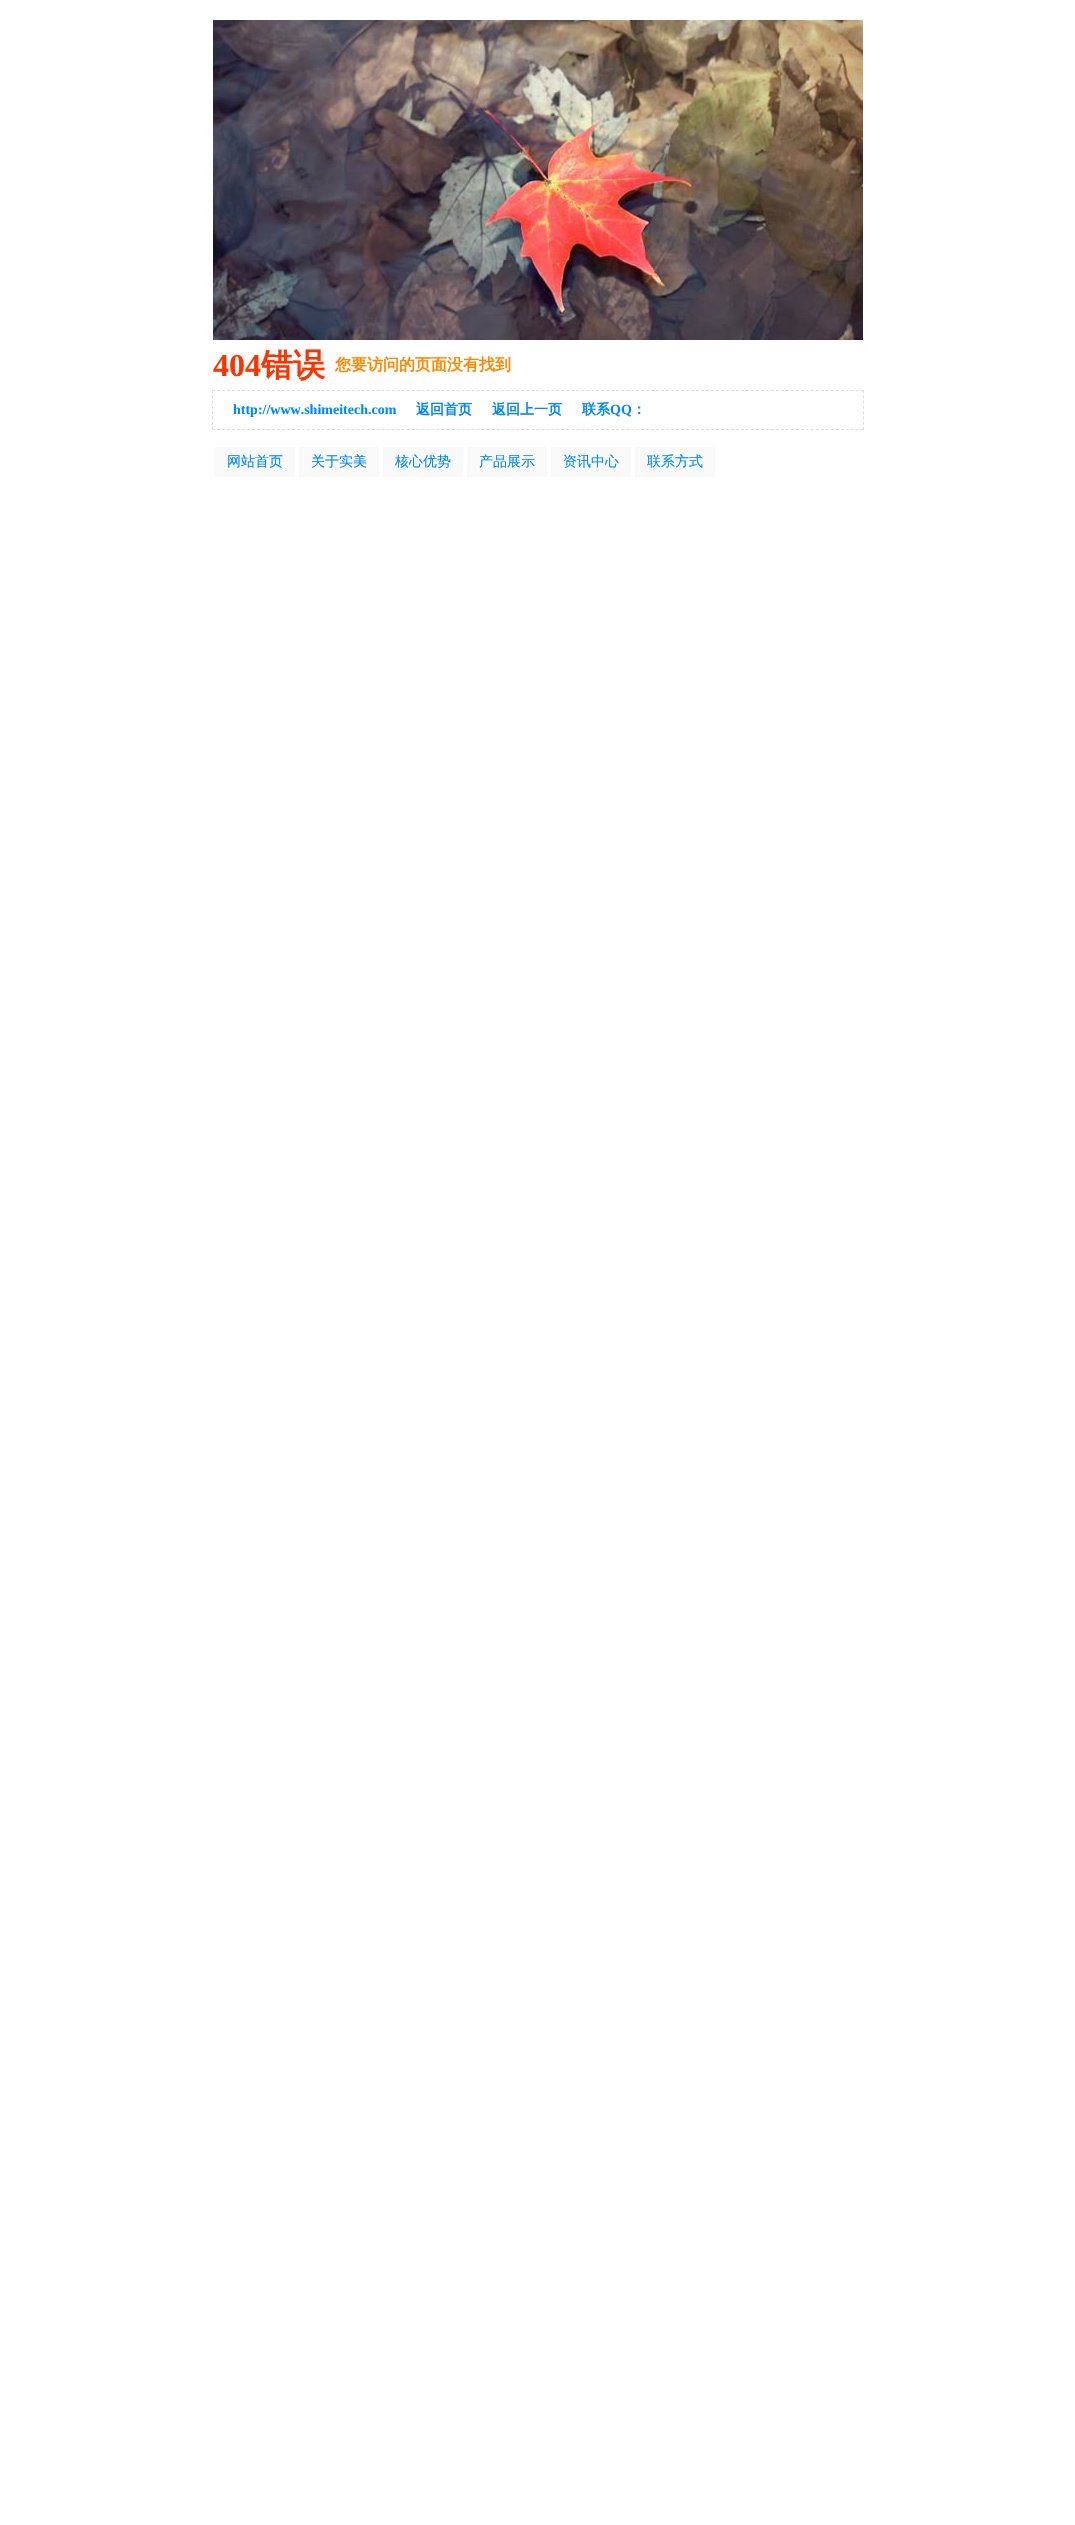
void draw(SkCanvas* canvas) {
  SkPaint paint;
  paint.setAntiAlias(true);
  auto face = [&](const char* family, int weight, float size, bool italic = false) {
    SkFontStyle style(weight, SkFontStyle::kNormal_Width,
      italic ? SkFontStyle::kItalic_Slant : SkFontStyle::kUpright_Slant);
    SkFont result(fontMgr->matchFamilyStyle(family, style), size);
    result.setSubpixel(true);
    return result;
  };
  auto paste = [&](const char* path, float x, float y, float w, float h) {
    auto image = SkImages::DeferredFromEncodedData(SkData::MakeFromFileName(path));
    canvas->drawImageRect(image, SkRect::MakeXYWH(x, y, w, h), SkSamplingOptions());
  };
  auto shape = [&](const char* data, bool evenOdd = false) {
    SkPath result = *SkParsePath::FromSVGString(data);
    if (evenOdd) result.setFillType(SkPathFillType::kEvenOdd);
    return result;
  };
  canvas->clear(0xffffffff);
  paste("img/1.png", 213, 20, 650, 320);
  paint.setStroke(true);
  paint.setStrokeWidth(1);
  paint.setColor(0xffdddddd);
  paint.setPathEffect(SkDashPathEffect::Make({{3, 1.99f}}, 0));
  canvas->drawPath(shape("M212 390.5H864"), paint);
  paint.setPathEffect(nullptr);
  paint.setPathEffect(SkDashPathEffect::Make({{3, 2.29f}}, 0));
  canvas->drawPath(shape("M863.5 390V430"), paint);
  paint.setPathEffect(nullptr);
  paint.setPathEffect(SkDashPathEffect::Make({{3, 1.99f}}, 0));
  canvas->drawPath(shape("M212 429.5H864"), paint);
  paint.setPathEffect(nullptr);
  paint.setPathEffect(SkDashPathEffect::Make({{3, 2.29f}}, 0));
  canvas->drawPath(shape("M212.5 390V430"), paint);
  paint.setPathEffect(nullptr);
  paint.setStroke(false);
  {
    const struct { float x, y, w, h; SkColor color; } items[] = {
      {215, 447, 80, 30, 0xfff9f9f9},
      {299, 447, 80, 30, 0xfff9f9f9},
      {383, 447, 80, 30, 0xfff9f9f9},
      {467, 447, 80, 30, 0xfff9f9f9},
      {551, 447, 80, 30, 0xfff9f9f9},
      {635, 447, 80, 30, 0xfff9f9f9},
    };
    for (auto [x, y, w, h, color] : items) {
      paint.setColor(color);
      canvas->drawRect(SkRect::MakeXYWH(x, y, w, h), paint);
    }
  }
  auto f0 = face("Liberation Serif", 700, 32);
  paint.setColor(0xffff3300);
  canvas->drawString("404", 213, 376, f0, paint);
  auto f1 = face("WenQuanYi Zen Hei", 700, 32);
  canvas->drawString("错误", 261, 376, f1, paint);
  auto f2 = face("WenQuanYi Zen Hei", 700, 16);
  paint.setColor(0xffff8800);
  canvas->drawString("您要访问的页面没有找到", 335, 370, f2, paint);
  auto f3 = face("Liberation Serif", 700, 14);
  paint.setColor(0xff0088ff);
  canvas->drawString("http://www.shimeitech.com", 233, 414, f3, paint);
  auto f4 = face("WenQuanYi Zen Hei", 700, 14);
  {
    const struct { const char* s; float x, y; } items[] = {
      {"返回首页", 416, 414},
      {"返回上一页", 492, 414},
      {"联系", 582, 414},
    };
    for (auto [s, x, y] : items) {
      canvas->drawString(s, x, y, f4, paint);
    }
  }
  canvas->drawString("QQ", 610, 414, f3, paint);
  canvas->drawString("：", 632, 414, f4, paint);
  auto f5 = face("WenQuanYi Zen Hei", 500, 14);
  {
    const struct { const char* s; float x, y; } items[] = {
      {"网站首页", 227, 466},
      {"关于实美", 311, 466},
      {"核心优势", 395, 466},
      {"产品展示", 479, 466},
      {"资讯中心", 563, 466},
      {"联系方式", 647, 466},
    };
    for (auto [s, x, y] : items) {
      canvas->drawString(s, x, y, f5, paint);
    }
  }
}
